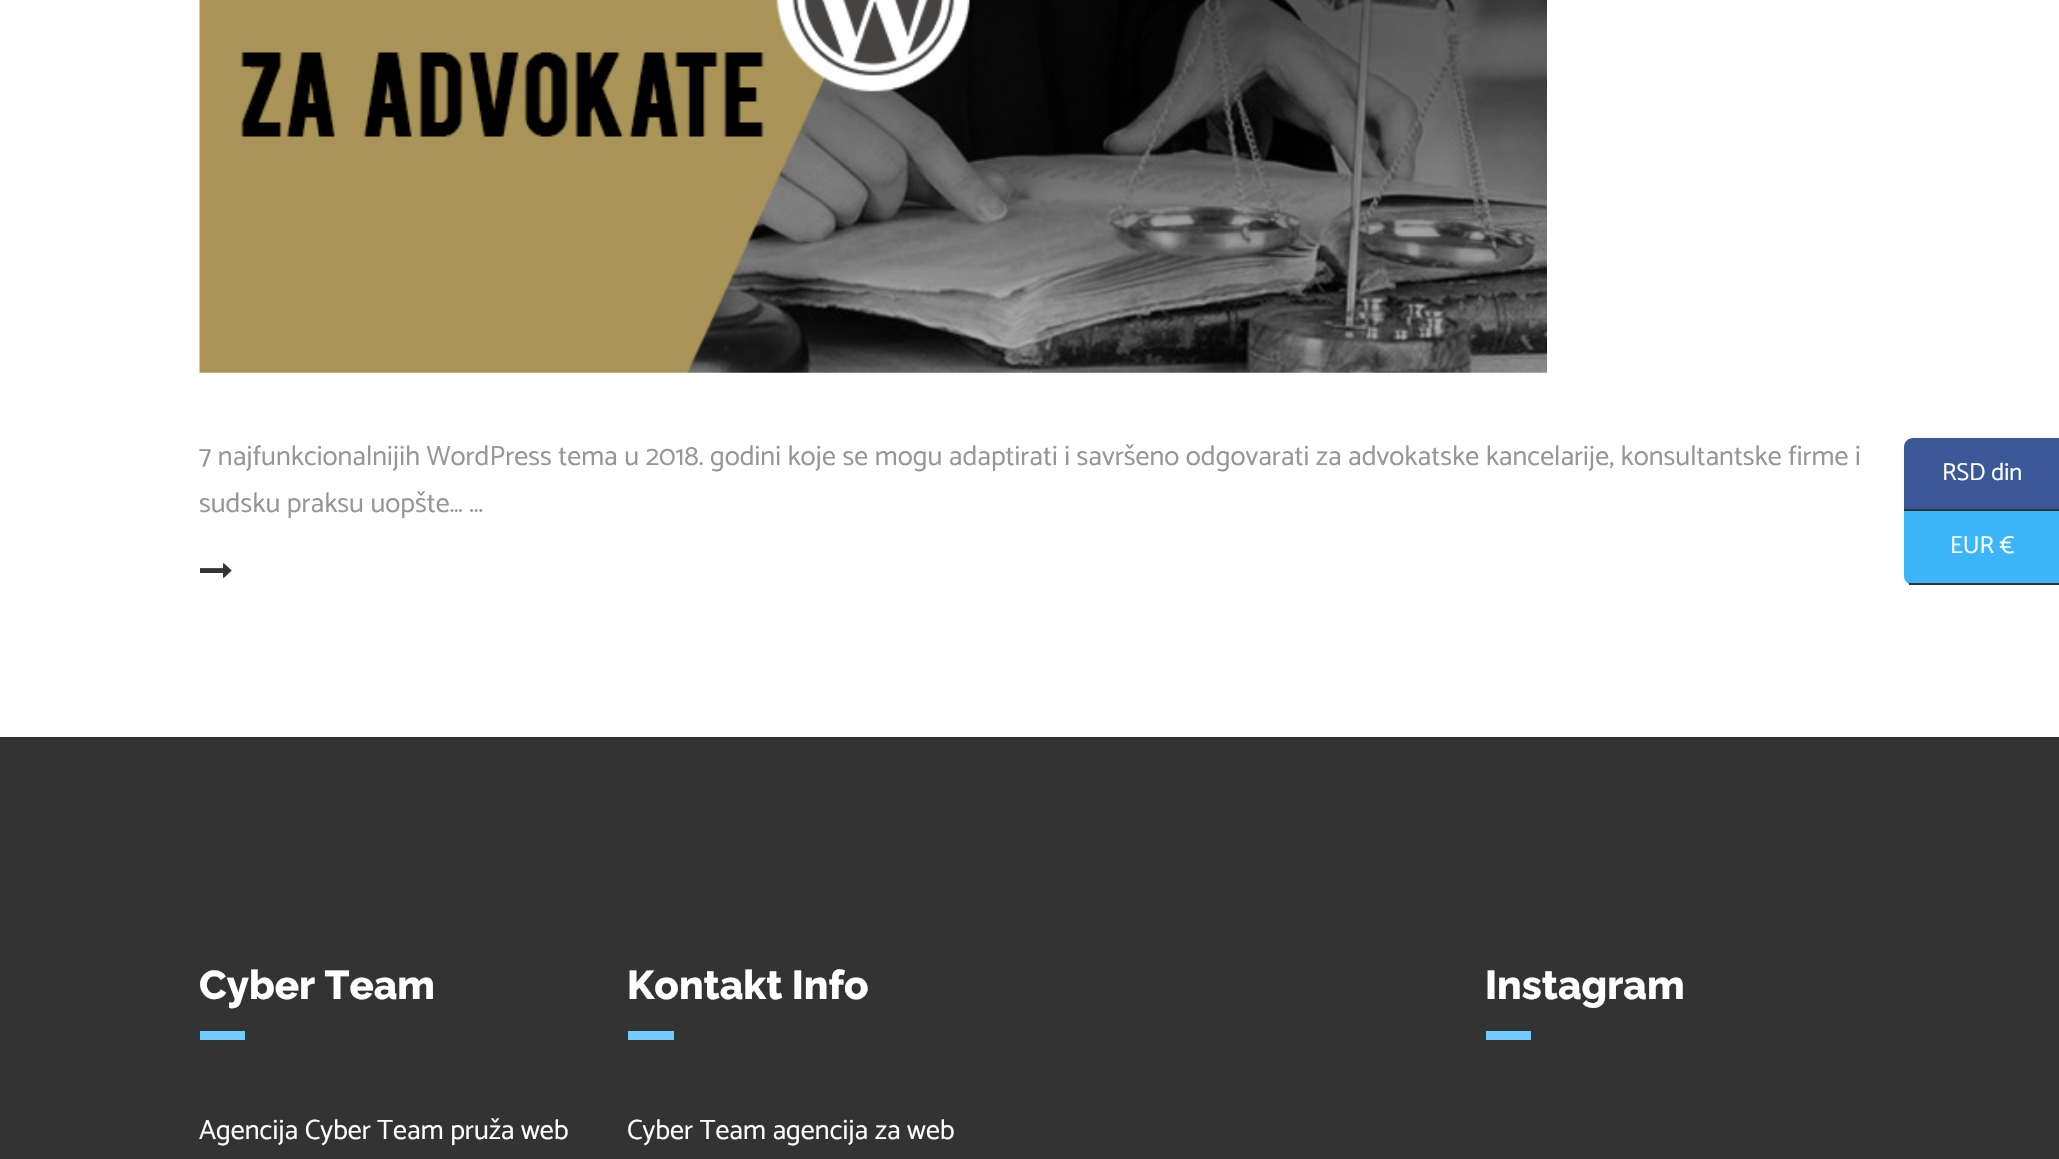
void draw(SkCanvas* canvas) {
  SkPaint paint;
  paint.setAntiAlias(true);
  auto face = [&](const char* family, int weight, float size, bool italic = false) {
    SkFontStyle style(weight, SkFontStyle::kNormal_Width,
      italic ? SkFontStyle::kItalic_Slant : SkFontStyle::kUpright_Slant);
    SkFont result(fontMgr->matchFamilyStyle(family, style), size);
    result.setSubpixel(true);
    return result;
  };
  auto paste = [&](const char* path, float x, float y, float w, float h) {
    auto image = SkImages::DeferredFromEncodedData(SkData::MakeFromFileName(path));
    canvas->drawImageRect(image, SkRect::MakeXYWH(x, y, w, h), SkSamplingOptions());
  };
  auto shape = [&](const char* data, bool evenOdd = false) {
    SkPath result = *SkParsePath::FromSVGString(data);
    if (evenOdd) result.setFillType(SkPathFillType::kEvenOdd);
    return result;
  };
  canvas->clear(0xffffffff);
  paste("img/1.png", 199, 0, 1348, 373);
  paste("img/2.png", 200, 563, 32, 15);
  {
    const struct { float x, y, w, h; SkColor color; } items[] = {
      {0, 737, 2059, 422, 0xff333333},
      {200, 1031, 45, 9, 0xff71cbfe},
      {628, 1031, 46, 9, 0xff71cbfe},
      {1486, 1031, 45, 9, 0xff71cbfe},
    };
    for (auto [x, y, w, h, color] : items) {
      paint.setColor(color);
      canvas->drawRect(SkRect::MakeXYWH(x, y, w, h), paint);
    }
  }
  paint.setColor(0xff3b5998);
  canvas->drawPath(shape("M1913 438H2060V511H1904V447C1904 442 1908 438 1913 438Z"), paint);
  paint.setColor(0xff333333);
  canvas->drawRect(SkRect::MakeXYWH(1904, 509, 155, 2), paint);
  paint.setColor(0xff3cb5fa);
  canvas->drawPath(shape("M1904 511H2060V585H1913C1908 585 1904 581 1904 576Z"), paint);
  paint.setColor(0xff333333);
  canvas->drawRect(SkRect::MakeXYWH(1909, 583, 150, 2), paint);
  auto f0 = face("Catamaran", 400, 28);
  paint.setColor(0xff969696);
  canvas->drawString("7 najfunkcionalnijih WordPress tema u 2018. godini koje se mogu adaptirati i savršeno odgovarati za advokatske kancelarije, konsultantske firme i", 199, 465, f0, paint);
  canvas->drawString("sudsku praksu uopšte… ...", 199, 512, f0, paint);
  auto f1 = face("Raleway", 800, 40.25f);
  paint.setColor(0xffffffff);
  canvas->drawString("Cyber Team", 199, 999, f1, paint);
  canvas->drawString("Agencija Cyber Team pruža web", 199, 1139, f0, paint);
  canvas->drawString("Kontakt Info", 627, 999, f1, paint);
  canvas->drawString("Cyber Team agencija za web", 627, 1139, f0, paint);
  canvas->drawString("Instagram", 1485, 999, f1, paint);
  auto f2 = face("Catamaran", 400, 24.5f);
  canvas->drawString("RSD din", 1942, 480, f2, paint);
  canvas->drawString("EUR €", 1950, 553, f2, paint);
}
